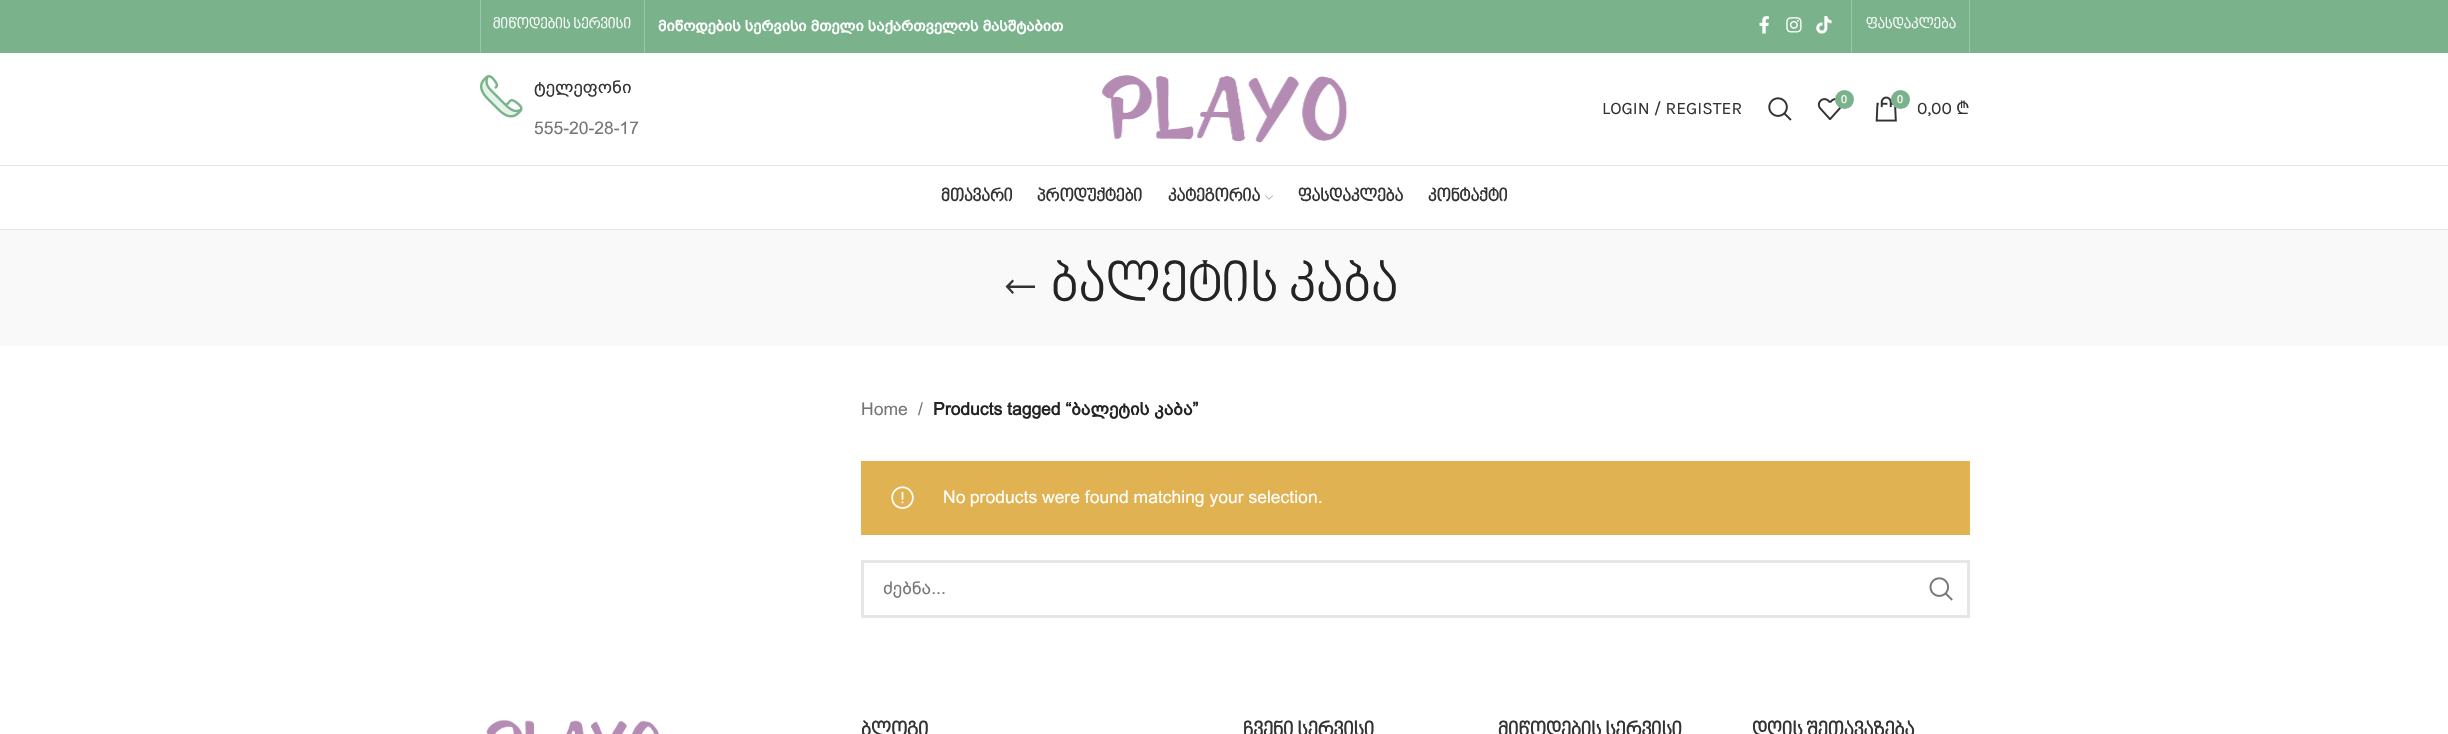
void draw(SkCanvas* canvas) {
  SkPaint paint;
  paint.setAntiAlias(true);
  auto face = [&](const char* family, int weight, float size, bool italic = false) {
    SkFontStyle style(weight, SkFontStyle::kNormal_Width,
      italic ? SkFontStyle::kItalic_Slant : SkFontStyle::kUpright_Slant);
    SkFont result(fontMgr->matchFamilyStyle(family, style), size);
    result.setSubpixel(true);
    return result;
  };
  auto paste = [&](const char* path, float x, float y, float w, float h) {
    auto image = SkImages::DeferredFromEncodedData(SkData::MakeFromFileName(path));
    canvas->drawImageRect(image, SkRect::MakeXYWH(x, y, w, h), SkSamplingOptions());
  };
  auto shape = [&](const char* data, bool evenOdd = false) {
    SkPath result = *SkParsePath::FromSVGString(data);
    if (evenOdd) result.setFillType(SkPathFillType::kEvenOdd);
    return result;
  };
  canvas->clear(0xffffffff);
  {
    const struct { float x, y, w, h; SkColor color; } items[] = {
      {0, 0, 2448, 53, 0xff7ab38b},
      {480, 0, 1, 53, 0xff9bc6a8},
      {644, 0, 1, 53, 0xff9bc6a8},
    };
    for (auto [x, y, w, h, color] : items) {
      paint.setColor(color);
      canvas->drawRect(SkRect::MakeXYWH(x, y, w, h), paint);
    }
  }
  paste("img/1.png", 1759, 16, 10, 18);
  paste("img/2.png", 1786, 17, 16, 16);
  paste("img/3.png", 1816, 16, 16, 18);
  {
    const struct { float x, y, w, h; SkColor color; } items[] = {
      {1851, 0, 1, 53, 0xff9bc6a8},
      {1969, 0, 1, 53, 0xff9bc6a8},
      {0, 165, 2448, 1, 0xffe8e8e8},
    };
    for (auto [x, y, w, h, color] : items) {
      paint.setColor(color);
      canvas->drawRect(SkRect::MakeXYWH(x, y, w, h), paint);
    }
  }
  paste("img/4.png", 480, 75, 43, 43);
  paste("img/5.png", 1101, 75, 247, 68);
  paste("img/6.png", 1768, 97, 24, 24);
  paste("img/7.png", 1817, 98, 25, 22);
  paint.setColor(0xff7ab38b);
  canvas->drawCircle(1844.5f, 99.5f, 9.5f, paint);
  paste("img/8.png", 1875, 96, 22, 26);
  canvas->drawCircle(1900.5f, 99.5f, 9.5f, paint);
  paint.setColor(0xffe8e8e8);
  canvas->drawRect(SkRect::MakeXYWH(0, 229, 2448, 1), paint);
  paste("img/9.png", 1265, 195, 8, 5);
  paint.setColor(0xfff9f9f9);
  canvas->drawRect(SkRect::MakeXYWH(0, 230, 2448, 116), paint);
  paint.setColor(0xff333333);
  canvas->drawPath(shape("M1014 292.5L1010 288H1035V285.5H1010L1014 281L1012.5 279.5L1005.5 286.5L1012.5 294Z"), paint);
  paint.setColor(0xffe0b252);
  canvas->drawRect(SkRect::MakeXYWH(861, 461, 1109, 74), paint);
  paste("img/10.png", 891, 486, 23, 23);
  paint.setStroke(true);
  paint.setStrokeWidth(3);
  paint.setColor(0xffe6e6e6);
  canvas->drawRect(SkRect::MakeXYWH(862.5f, 561.5f, 1106, 55), paint);
  paste("img/11.png", 1929, 577, 24, 24);
  paste("img/12.png", 486, 719, 173, 15);
  auto f0 = face("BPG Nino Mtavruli", 400, 15);
  paint.setStroke(false);
  paint.setColor(0xffffffff);
  canvas->drawString("მიწოდების სერვისი", 493, 29, f0, paint);
  auto f1 = face("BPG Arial", 700, 15);
  canvas->drawString("მიწოდების სერვისი მთელი საქართველოს მასშტაბით", 658, 31, f1, paint);
  canvas->drawString("ფასდაკლება", 1866, 29, f0, paint);
  auto f2 = face("BPG Arial", 400, 17.5f);
  paint.setColor(0xff333333);
  canvas->drawString("ტელეფონი", 534, 93, f2, paint);
  paint.setColor(0xff767676);
  canvas->drawString("555-20-28-17", 534, 134, f2, paint);
  auto f3 = face("Karla", 400, 17.5f);
  paint.setColor(0xff333333);
  canvas->drawString("LOGIN / REGISTER", 1602, 114, f3, paint);
  auto f4 = face("BPG Arial", 400, 11);
  paint.setColor(0xffffffff);
  canvas->drawString("0", 1841, 103, f4, paint);
  canvas->drawString("0", 1897, 103, f4, paint);
  paint.setColor(0xff333333);
  canvas->drawString("0,00", 1917, 114, f3, paint);
  auto f5 = face("Noto Sans", 400, 17.5f);
  canvas->drawString("₾", 1956, 114, f5, paint);
  auto f6 = face("BPG Nino Mtavruli", 700, 17.5f);
  {
    const struct { const char* s; float x, y; } items[] = {
      {"მთავარი", 941, 202},
      {"პროდუქტები", 1037, 202},
      {"კატეგორია", 1168, 202},
      {"ფასდაკლება", 1298, 202},
      {"კონტაქტი", 1428, 202},
    };
    for (auto [s, x, y] : items) {
      canvas->drawString(s, x, y, f6, paint);
    }
  }
  auto f7 = face("BPG Nino Mtavruli", 400, 55);
  paint.setColor(0xff242424);
  canvas->drawString("ბალეტის კაბა", 1051, 304, f7, paint);
  paint.setColor(0xff767676);
  canvas->drawString("Home", 861, 415, f2, paint);
  canvas->drawString("/", 918, 415, f2, paint);
  auto f8 = face("BPG Arial", 700, 17.5f);
  paint.setColor(0xff242424);
  canvas->drawString("Products tagged “ბალეტის კაბა”", 933, 415, f8, paint);
  paint.setColor(0xffffffff);
  canvas->drawString("No products were found matching your selection.", 943, 503, f2, paint);
  paint.setColor(0xff767676);
  canvas->drawString("ძებნა...", 883, 594, f2, paint);
  auto f9 = face("BPG Nino Mtavruli", 700, 20);
  paint.setColor(0xff333333);
  {
    const struct { const char* s; float x, y; } items[] = {
      {"ბლოგი", 861, 737},
      {"ჩვენი სერვისი", 1243, 737},
      {"მიწოდების სერვისი", 1498, 737},
      {"დღის შეთავაზება", 1752, 737},
    };
    for (auto [s, x, y] : items) {
      canvas->drawString(s, x, y, f9, paint);
    }
  }
}
